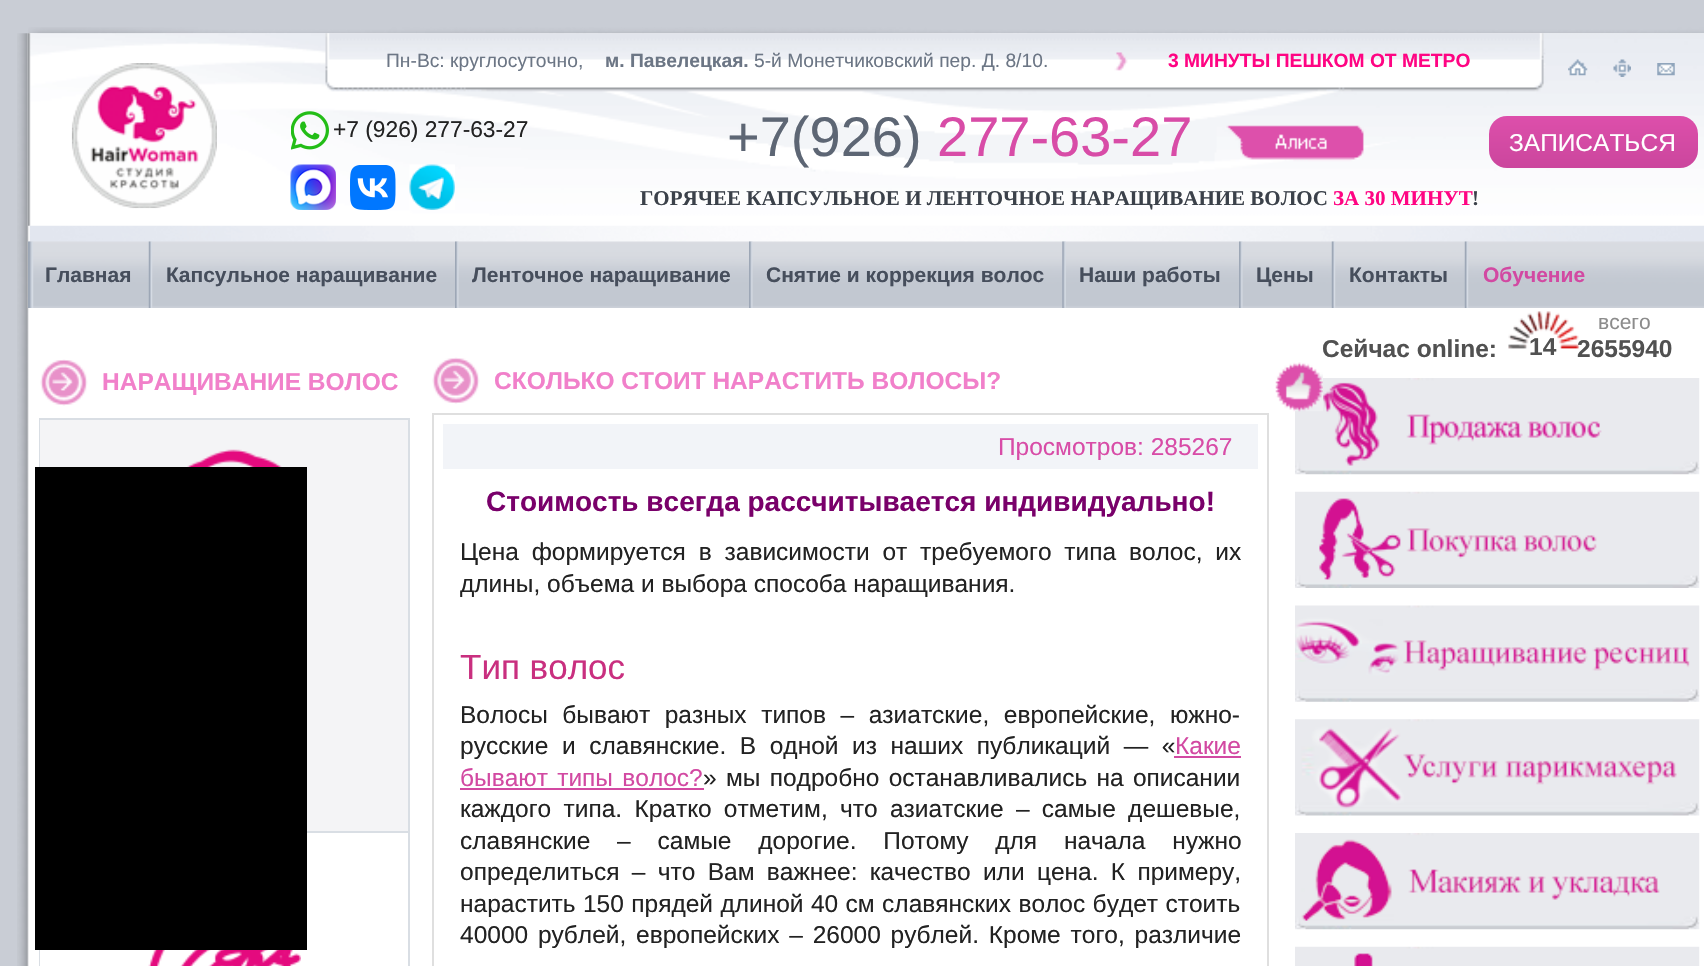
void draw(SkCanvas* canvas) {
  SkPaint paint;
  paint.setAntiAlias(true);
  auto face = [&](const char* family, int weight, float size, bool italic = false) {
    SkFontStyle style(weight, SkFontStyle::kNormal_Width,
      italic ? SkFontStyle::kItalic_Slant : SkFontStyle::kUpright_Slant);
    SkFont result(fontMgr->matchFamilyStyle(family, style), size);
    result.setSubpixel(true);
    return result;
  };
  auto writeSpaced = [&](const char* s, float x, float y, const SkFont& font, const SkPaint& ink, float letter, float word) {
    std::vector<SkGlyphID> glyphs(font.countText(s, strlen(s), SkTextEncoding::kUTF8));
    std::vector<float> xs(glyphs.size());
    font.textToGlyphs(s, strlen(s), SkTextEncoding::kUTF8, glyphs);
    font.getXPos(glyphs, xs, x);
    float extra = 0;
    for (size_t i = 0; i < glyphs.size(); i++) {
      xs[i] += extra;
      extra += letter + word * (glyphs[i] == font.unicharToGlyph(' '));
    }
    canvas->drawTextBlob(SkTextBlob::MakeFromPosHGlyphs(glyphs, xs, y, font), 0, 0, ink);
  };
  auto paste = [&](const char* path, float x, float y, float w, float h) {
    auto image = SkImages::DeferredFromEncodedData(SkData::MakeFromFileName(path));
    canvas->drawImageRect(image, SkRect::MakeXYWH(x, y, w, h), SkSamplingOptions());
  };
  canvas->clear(0xffc9cdd5);
  paste("img/1.png", 17, 33, 1687, 933);
  paste("img/2.png", 28, 33, 1676, 193);
  paste("img/3.png", 28, 27, 1676, 7);
  paste("img/4.png", 71, 63, 146, 146);
  paste("img/5.png", 1568, 59, 20, 17);
  paste("img/6.png", 1613, 59, 18, 18);
  paste("img/7.png", 1657, 63, 18, 13);
  paste("img/8.png", 291, 111, 38, 39);
  paste("img/9.png", 290, 164, 46, 46);
  paste("img/10.png", 350, 165, 46, 45);
  paste("img/11.png", 409, 164, 46, 46);
  {
    const SkColor colors[] = {0xffdd4fab, 0xffcb469d};
    const float stops[] = {0, 1};
    const SkPoint ends[] = {{1593, 116}, {1593, 168}};
    paint.setShader(SkGradientShader::MakeLinear(ends, colors, stops, 2, SkTileMode::kClamp));
    paint.setAlpha(255);
  }
  canvas->drawRoundRect(SkRect::MakeXYWH(1489, 116, 209, 52), 18, 18, paint);
  paste("img/12.png", 29, 225, 1675, 17);
  paste("img/13.png", 28, 241, 1676, 67);
  paste("img/14.png", 28, 241, 6, 67);
  paste("img/15.png", 148, 241, 5, 67);
  paste("img/16.png", 455, 241, 4, 67);
  paste("img/17.png", 749, 241, 4, 67);
  paste("img/18.png", 1062, 241, 4, 67);
  paste("img/19.png", 1239, 241, 4, 67);
  paste("img/20.png", 1331, 241, 5, 67);
  paste("img/21.png", 1464, 241, 5, 67);
  paste("img/22.png", 1508, 311, 71, 38);
  paint.setStroke(true);
  paint.setStrokeWidth(2);
  paint.setShader(nullptr);
  paint.setColor(0xffd9dee4);
  canvas->drawRect(SkRect::MakeXYWH(40, 419, 369, 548), paint);
  paste("img/23.png", 40, 359, 48, 47);
  paint.setStroke(false);
  paint.setColor(0xfff4f4f6);
  canvas->drawRect(SkRect::MakeXYWH(40, 420, 368, 411), paint);
  paste("img/24.png", 187, 449, 95, 18);
  paint.setColor(0xffffffff);
  canvas->drawRect(SkRect::MakeXYWH(40, 833, 1, 133), paint);
  paint.setColor(0xffd9dee4);
  canvas->drawRect(SkRect::MakeXYWH(307, 831, 101, 2), paint);
  paste("img/25.png", 148, 950, 153, 16);
  paste("img/26.png", 432, 357, 48, 47);
  paint.setStroke(true);
  paint.setColor(0xffdfdfdf);
  canvas->drawRect(SkRect::MakeXYWH(433, 414, 835, 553), paint);
  paint.setStroke(false);
  {
    const struct { float x, y, w, h; SkColor color; } items[] = {
      {443, 424, 815, 45, 0xfff2f4f8},
      {1174, 756, 67, 2, 0xffd249a2},
      {460, 788, 244, 2, 0xffd249a2},
    };
    for (auto [x, y, w, h, color] : items) {
      paint.setColor(color);
      canvas->drawRect(SkRect::MakeXYWH(x, y, w, h), paint);
    }
  }
  paste("img/28.png", 1295, 378, 405, 97);
  paste("img/27.png", 1275, 362, 48, 50);
  paste("img/29.png", 1295, 491, 405, 97);
  paste("img/30.png", 1295, 605, 405, 97);
  paste("img/31.png", 1295, 719, 405, 97);
  paste("img/32.png", 1295, 833, 405, 97);
  paste("img/33.png", 1295, 946, 405, 20);
  paint.setColor(0xff000000);
  canvas->drawRect(SkRect::MakeXYWH(35, 467, 272, 483), paint);
  auto f0 = face("Liberation Sans", 400, 19.25f);
  paint.setColor(0xff6c7685);
  canvas->drawString("Пн-Вс: круглосуточно,", 386, 67, f0, paint);
  auto f1 = face("Liberation Sans", 700, 19.25f);
  canvas->drawString("м. Павелецкая.", 605, 67, f1, paint);
  canvas->drawString("5-й Монетчиковский пер. Д. 8/10.", 754, 67, f0, paint);
  paint.setColor(0xffff0483);
  canvas->drawString("3 МИНУТЫ ПЕШКОМ ОТ МЕТРО", 1168, 67, f1, paint);
  auto f2 = face("Liberation Sans", 400, 22.75f);
  paint.setColor(0xff222222);
  canvas->drawString("+7 (926) 277-63-27", 333, 137, f2, paint);
  auto f3 = face("Liberation Sans", 400, 56);
  paint.setColor(0xff5d6674);
  canvas->drawString("+7(926)", 727, 156, f3, paint);
  paint.setColor(0xffd84ca7);
  canvas->drawString("277-63-27", 937, 156, f3, paint);
  auto f4 = face("Liberation Sans", 400, 24.5f);
  paint.setColor(0xffffffff);
  canvas->drawString("ЗАПИСАТЬСЯ", 1509, 151, f4, paint);
  auto f5 = face("Liberation Serif", 700, 21);
  paint.setColor(0xff3b414a);
  canvas->drawString("ГОРЯЧЕЕ КАПСУЛЬНОЕ И ЛЕНТОЧНОЕ НАРАЩИВАНИЕ ВОЛОС", 640, 205, f5, paint);
  paint.setColor(0xffff0483);
  canvas->drawString("ЗА 30 МИНУТ", 1333, 205, f5, paint);
  paint.setColor(0xff3b414a);
  canvas->drawString("!", 1472, 205, f5, paint);
  auto f6 = face("Liberation Sans", 700, 21);
  paint.setColor(0xff464e5c);
  {
    const struct { const char* s; float x, y; } items[] = {
      {"Главная", 45, 282},
      {"Капсульное наращивание", 166, 282},
      {"Ленточное наращивание", 472, 282},
      {"Снятие и коррекция волос", 766, 282},
      {"Наши работы", 1079, 282},
      {"Цены", 1256, 282},
      {"Контакты", 1349, 282},
    };
    for (auto [s, x, y] : items) {
      canvas->drawString(s, x, y, f6, paint);
    }
  }
  paint.setColor(0xffd249a2);
  canvas->drawString("Обучение", 1483, 282, f6, paint);
  auto f7 = face("Liberation Sans", 700, 24.5f);
  paint.setColor(0xff515151);
  canvas->drawString("Сейчас online:", 1322, 357, f7, paint);
  canvas->drawString("14", 1529, 355, f7, paint);
  auto f8 = face("Liberation Sans", 400, 21);
  paint.setColor(0xff8c8c8c);
  canvas->drawString("всего", 1598, 329, f8, paint);
  paint.setColor(0xff515151);
  canvas->drawString("2655940", 1577, 357, f7, paint);
  paint.setColor(0xfff180ca);
  canvas->drawString("НАРАЩИВАНИЕ ВОЛОС", 102, 390, f7, paint);
  canvas->drawString("СКОЛЬКО СТОИТ НАРАСТИТЬ ВОЛОСЫ?", 494, 389, f7, paint);
  paint.setColor(0xffd84ca7);
  canvas->drawString("Просмотров: 285267", 998, 455, f4, paint);
  auto f9 = face("Liberation Sans", 700, 28);
  paint.setColor(0xff79006a);
  canvas->drawString("Стоимость всегда рассчитывается индивидуально!", 486, 511, f9, paint);
  paint.setColor(0xff222222);
  writeSpaced("Цена формируется в зависимости от требуемого типа волос, их", 460, 560, f4, paint, 0, 6);
  canvas->drawString("длины, объема и выбора способа наращивания.", 460, 592, f4, paint);
  auto f10 = face("Liberation Sans", 400, 35);
  paint.setColor(0xffc92f7f);
  canvas->drawString("Тип волос", 460, 679, f10, paint);
  paint.setColor(0xff222222);
  writeSpaced("Волосы бывают разных типов – азиатские, европейские, южно-", 460, 723, f4, paint, 0, 7.75f);
  writeSpaced("русские и славянские. В одной из наших публикаций — «", 460, 754, f4, paint, 0, 6.75f);
  paint.setColor(0xffd249a2);
  canvas->drawString("Какие", 1175, 754, f4, paint);
  writeSpaced("бывают типы волос?", 460, 786, f4, paint, 0, 2.5f);
  paint.setColor(0xff222222);
  writeSpaced("» мы подробно останавливались на описании", 703, 786, f4, paint, 0, 2.5f);
  writeSpaced("каждого типа. Кратко отметим, что азиатские – самые дешевые,", 460, 817, f4, paint, 0, 5.5f);
  writeSpaced("славянские – самые дорогие. Потому для начала нужно", 460, 849, f4, paint, 0, 20);
  writeSpaced("определиться – что Вам важнее: качество или цена. К примеру,", 460, 880, f4, paint, 0, 5.5f);
  writeSpaced("нарастить 150 прядей длиной 40 см славянских волос будет стоить", 460, 912, f4, paint, 0, 0.6f);
  writeSpaced("40000 рублей, европейских – 26000 рублей. Кроме того, различие", 460, 943, f4, paint, 0, 3);
}
